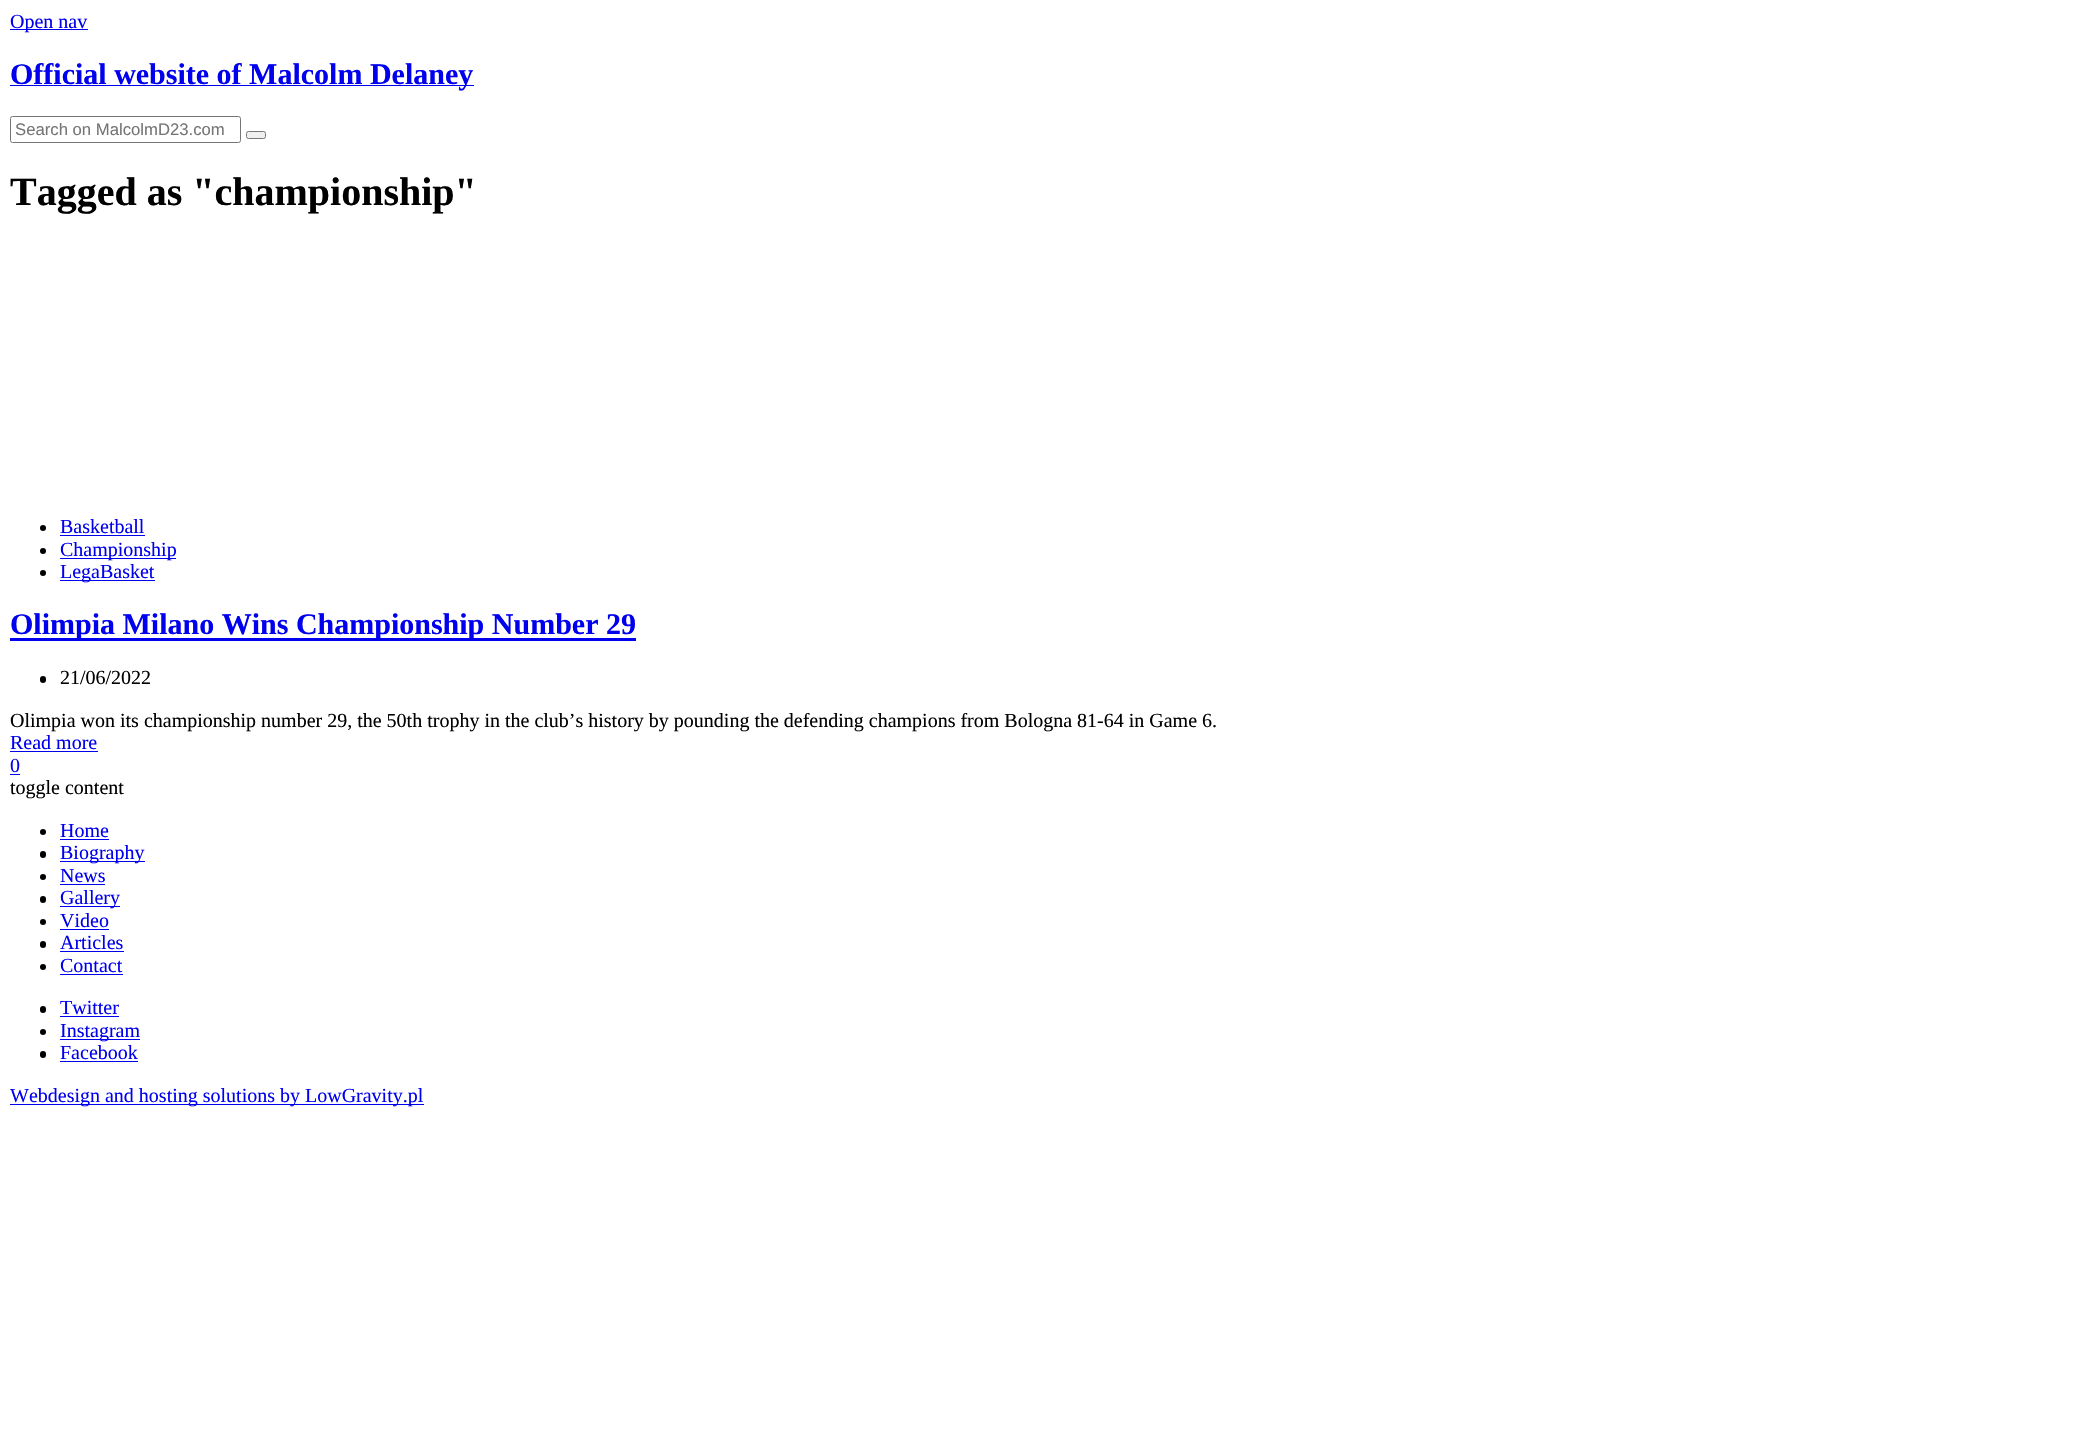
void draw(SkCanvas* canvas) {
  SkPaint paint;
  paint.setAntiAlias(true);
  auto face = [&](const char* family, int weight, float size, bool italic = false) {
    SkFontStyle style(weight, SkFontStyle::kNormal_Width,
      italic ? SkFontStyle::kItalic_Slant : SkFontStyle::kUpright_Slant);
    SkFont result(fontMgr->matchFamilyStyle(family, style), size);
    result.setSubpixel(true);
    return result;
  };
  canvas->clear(0xffffffff);
  paint.setColor(0xff0000ee);
  canvas->drawRect(SkRect::MakeXYWH(10, 29, 78, 1), paint);
  canvas->drawRect(SkRect::MakeXYWH(10, 85, 464, 1), paint);
  paint.setStroke(true);
  paint.setStrokeWidth(1);
  paint.setColor(0xff767676);
  canvas->drawRoundRect(SkRect::MakeXYWH(10.5f, 116.5f, 230, 26), 2, 2, paint);
  paint.setStroke(false);
  paint.setColor(0xffefefef);
  canvas->drawRoundRect(SkRect::MakeXYWH(246.5f, 131.5f, 19, 7), 2, 2, paint);
  paint.setStroke(true);
  paint.setColor(0xff767676);
  canvas->drawRoundRect(SkRect::MakeXYWH(246.5f, 131.5f, 19, 7), 2, 2, paint);
  paint.setStroke(false);
  paint.setColor(0xff000000);
  canvas->drawCircle(43, 528, 3, paint);
  paint.setColor(0xff0000ee);
  canvas->drawRect(SkRect::MakeXYWH(60, 535, 85, 1), paint);
  paint.setColor(0xff000000);
  canvas->drawCircle(43, 551, 3, paint);
  paint.setColor(0xff0000ee);
  canvas->drawRect(SkRect::MakeXYWH(60, 558, 116, 1), paint);
  paint.setColor(0xff000000);
  canvas->drawCircle(43, 573, 3, paint);
  paint.setColor(0xff0000ee);
  canvas->drawRect(SkRect::MakeXYWH(60, 580, 95, 1), paint);
  canvas->drawRect(SkRect::MakeXYWH(10, 638, 626, 3), paint);
  paint.setColor(0xff000000);
  canvas->drawRoundRect(SkRect::MakeXYWH(40, 676, 6, 7), 3, 3, paint);
  paint.setColor(0xff0000ee);
  canvas->drawRect(SkRect::MakeXYWH(10, 751, 88, 1), paint);
  canvas->drawRect(SkRect::MakeXYWH(10, 774, 10, 1), paint);
  paint.setColor(0xff000000);
  canvas->drawCircle(43, 832, 3, paint);
  paint.setColor(0xff0000ee);
  canvas->drawRect(SkRect::MakeXYWH(60, 839, 49, 1), paint);
  paint.setColor(0xff000000);
  canvas->drawRoundRect(SkRect::MakeXYWH(40, 851, 6, 7), 3, 3, paint);
  paint.setColor(0xff0000ee);
  canvas->drawRect(SkRect::MakeXYWH(60, 861, 85, 1), paint);
  paint.setColor(0xff000000);
  canvas->drawCircle(43, 877, 3, paint);
  paint.setColor(0xff0000ee);
  canvas->drawRect(SkRect::MakeXYWH(60, 884, 45, 1), paint);
  paint.setColor(0xff000000);
  canvas->drawRoundRect(SkRect::MakeXYWH(40, 896, 6, 7), 3, 3, paint);
  paint.setColor(0xff0000ee);
  canvas->drawRect(SkRect::MakeXYWH(60, 906, 60, 1), paint);
  paint.setColor(0xff000000);
  canvas->drawCircle(43, 922, 3, paint);
  paint.setColor(0xff0000ee);
  canvas->drawRect(SkRect::MakeXYWH(60, 929, 49, 1), paint);
  paint.setColor(0xff000000);
  canvas->drawRoundRect(SkRect::MakeXYWH(40, 941, 6, 7), 3, 3, paint);
  paint.setColor(0xff0000ee);
  canvas->drawRect(SkRect::MakeXYWH(60, 951, 64, 1), paint);
  paint.setColor(0xff000000);
  canvas->drawCircle(43, 967, 3, paint);
  paint.setColor(0xff0000ee);
  canvas->drawRect(SkRect::MakeXYWH(60, 974, 63, 1), paint);
  paint.setColor(0xff000000);
  canvas->drawRoundRect(SkRect::MakeXYWH(40, 1006, 6, 7), 3, 3, paint);
  paint.setColor(0xff0000ee);
  canvas->drawRect(SkRect::MakeXYWH(60, 1016, 59, 1), paint);
  paint.setColor(0xff000000);
  canvas->drawCircle(43, 1032, 3, paint);
  paint.setColor(0xff0000ee);
  canvas->drawRect(SkRect::MakeXYWH(60, 1039, 80, 1), paint);
  paint.setColor(0xff000000);
  canvas->drawRoundRect(SkRect::MakeXYWH(40, 1051, 6, 7), 3, 3, paint);
  paint.setColor(0xff0000ee);
  canvas->drawRect(SkRect::MakeXYWH(60, 1061, 78, 1), paint);
  canvas->drawRect(SkRect::MakeXYWH(10, 1104, 414, 1), paint);
  auto f0 = face("Liberation Serif", 400, 20);
  canvas->drawString("Open nav", 10, 28, f0, paint);
  auto f1 = face("Liberation Serif", 700, 30);
  canvas->drawString("Official website of Malcolm Delaney", 10, 84, f1, paint);
  auto f2 = face("Liberation Sans", 400, 16.7f);
  paint.setColor(0xff757575);
  canvas->drawString("Search on MalcolmD23.com", 15, 135, f2, paint);
  auto f3 = face("Liberation Serif", 700, 40);
  paint.setColor(0xff000000);
  canvas->drawString("Tagged as \"championship\"", 10, 205, f3, paint);
  paint.setColor(0xff0000ee);
  {
    const struct { const char* s; float x, y; } items[] = {
      {"Basketball", 60, 533},
      {"Championship", 60, 556},
      {"LegaBasket", 60, 578},
    };
    for (auto [s, x, y] : items) {
      canvas->drawString(s, x, y, f0, paint);
    }
  }
  canvas->drawString("Olimpia Milano Wins Championship Number 29", 10, 634, f1, paint);
  paint.setColor(0xff000000);
  canvas->drawString("21/06/2022", 60, 684, f0, paint);
  canvas->drawString("Olimpia won its championship number 29, the 50th trophy in the club’s history by pounding the defending champions from Bologna 81-64 in Game 6.", 10, 727, f0, paint);
  paint.setColor(0xff0000ee);
  canvas->drawString("Read more", 10, 749, f0, paint);
  canvas->drawString("0", 10, 772, f0, paint);
  paint.setColor(0xff000000);
  canvas->drawString("toggle content", 10, 794, f0, paint);
  paint.setColor(0xff0000ee);
  {
    const struct { const char* s; float x, y; } items[] = {
      {"Home", 60, 837},
      {"Biography", 60, 859},
      {"News", 60, 882},
      {"Gallery", 60, 904},
      {"Video", 60, 927},
      {"Articles", 60, 949},
      {"Contact", 60, 972},
      {"Twitter", 60, 1014},
      {"Instagram", 60, 1037},
      {"Facebook", 60, 1059},
      {"Webdesign and hosting solutions by LowGravity.pl", 10, 1102},
    };
    for (auto [s, x, y] : items) {
      canvas->drawString(s, x, y, f0, paint);
    }
  }
}
